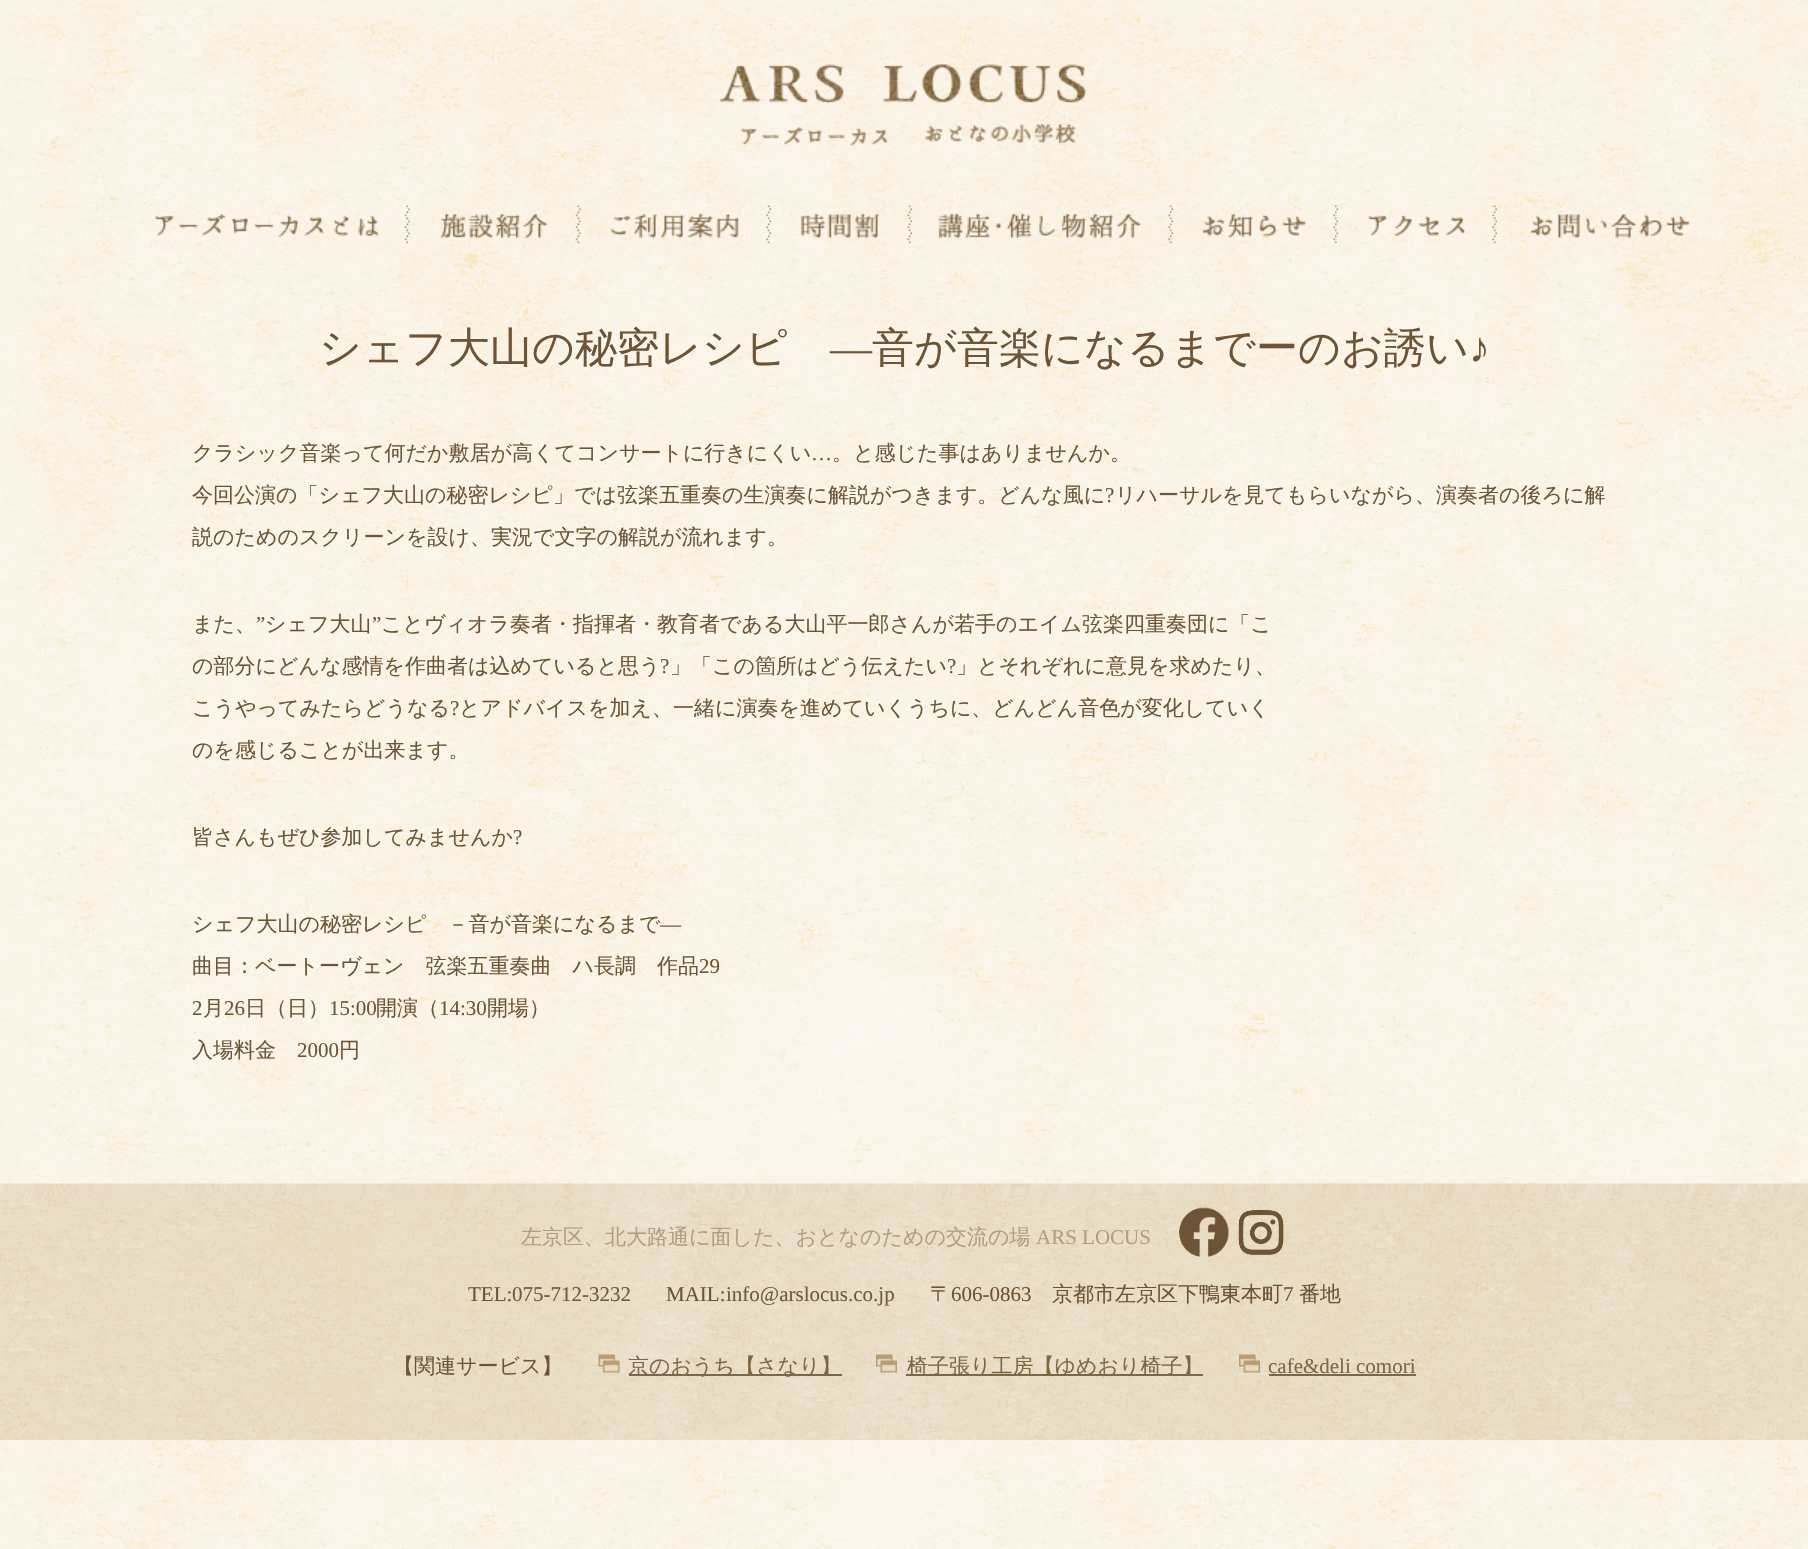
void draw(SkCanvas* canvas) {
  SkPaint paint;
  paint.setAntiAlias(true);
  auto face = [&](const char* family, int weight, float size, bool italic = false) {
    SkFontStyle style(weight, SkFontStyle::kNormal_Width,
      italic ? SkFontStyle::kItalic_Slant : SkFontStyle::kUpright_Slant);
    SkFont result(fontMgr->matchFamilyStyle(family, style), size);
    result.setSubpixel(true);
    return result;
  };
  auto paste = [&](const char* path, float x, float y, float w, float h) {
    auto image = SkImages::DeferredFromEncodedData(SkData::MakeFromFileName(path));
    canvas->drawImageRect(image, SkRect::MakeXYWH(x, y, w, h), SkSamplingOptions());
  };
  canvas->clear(0xffffffff);
  paste("img/1.png", 0, 0, 1808, 1549);
  paste("img/2.png", 719, 64, 368, 82);
  paste("img/3.png", 154, 205, 256, 39);
  paste("img/4.png", 440, 205, 141, 39);
  paste("img/5.png", 610, 205, 161, 39);
  paste("img/6.png", 800, 205, 112, 39);
  paste("img/7.png", 937, 205, 236, 39);
  paste("img/8.png", 1202, 205, 136, 39);
  paste("img/9.png", 1367, 205, 130, 39);
  paste("img/10.png", 1530, 214, 160, 25);
  paste("img/11.png", 0, 1183, 1808, 257);
  paste("img/12.png", 1179, 1207, 50, 50);
  paste("img/13.png", 1238, 1209, 46, 47);
  paste("img/14.png", 598, 1354, 22, 19);
  paint.setColor(0xff7d6746);
  canvas->drawRect(SkRect::MakeXYWH(629, 1374, 213, 2), paint);
  paste("img/15.png", 876, 1354, 21, 19);
  canvas->drawRect(SkRect::MakeXYWH(906, 1374, 297, 2), paint);
  paste("img/16.png", 1239, 1354, 21, 19);
  canvas->drawRect(SkRect::MakeXYWH(1269, 1374, 147, 2), paint);
  auto f0 = face("WenQuanYi Zen Hei", 500, 42);
  paint.setColor(0xff6d5436);
  canvas->drawString("シェフ大山の秘密レシピ", 319, 362, f0, paint);
  auto f1 = face("Liberation Serif", 400, 42);
  canvas->drawString("―", 830, 362, f1, paint);
  canvas->drawString("音が音楽になるまでーのお誘い", 872, 362, f0, paint);
  canvas->drawString("♪", 1469, 362, f1, paint);
  auto f2 = face("WenQuanYi Zen Hei", 500, 21);
  canvas->drawString("クラシック音楽って何だか敷居が高くてコンサートに行きにくい", 192, 460, f2, paint);
  auto f3 = face("Liberation Serif", 400, 21);
  canvas->drawString("…", 811, 460, f3, paint);
  canvas->drawString("。と感じた事はありませんか。", 832, 460, f2, paint);
  canvas->drawString("今回公演の「シェフ大山の秘密レシピ」では弦楽五重奏の生演奏に解説がつきます。どんな風に", 192, 502, f2, paint);
  canvas->drawString("?", 1105, 502, f3, paint);
  {
    const struct { const char* s; float x, y; } items[] = {
      {"リハーサルを見てもらいながら、演奏者の後ろに解", 1115, 502},
      {"説のためのスクリーンを設け、実況で文字の解説が流れます。", 192, 544},
      {"また、", 192, 631},
    };
    for (auto [s, x, y] : items) {
      canvas->drawString(s, x, y, f2, paint);
    }
  }
  canvas->drawString("”", 256, 631, f3, paint);
  canvas->drawString("シェフ大山", 265, 631, f2, paint);
  canvas->drawString("”", 372, 631, f3, paint);
  canvas->drawString("ことヴィオラ奏者・指揮者・教育者である大山平一郎さんが若手のエイム弦楽四重奏団に「こ", 381, 631, f2, paint);
  canvas->drawString("の部分にどんな感情を作曲者は込めていると思う", 192, 673, f2, paint);
  canvas->drawString("?", 660, 673, f3, paint);
  canvas->drawString("」「この箇所はどう伝えたい", 670, 673, f2, paint);
  canvas->drawString("?", 947, 673, f3, paint);
  canvas->drawString("」とそれぞれに意見を求めたり、", 956, 673, f2, paint);
  canvas->drawString("こうやってみたらどうなる", 192, 715, f2, paint);
  canvas->drawString("?", 450, 715, f3, paint);
  {
    const struct { const char* s; float x, y; } items[] = {
      {"とアドバイスを加え、一緒に演奏を進めていくうちに、どんどん音色が変化していく", 459, 715},
      {"のを感じることが出来ます。", 192, 757},
      {"皆さんもぜひ参加してみませんか", 192, 844},
    };
    for (auto [s, x, y] : items) {
      canvas->drawString(s, x, y, f2, paint);
    }
  }
  canvas->drawString("?", 513, 844, f3, paint);
  canvas->drawString("シェフ大山の秘密レシピ　－音が音楽になるまで", 192, 931, f2, paint);
  canvas->drawString("―", 660, 931, f3, paint);
  canvas->drawString("曲目：ベートーヴェン　弦楽五重奏曲　ハ長調　作品", 192, 973, f2, paint);
  canvas->drawString("29", 699, 973, f3, paint);
  canvas->drawString("2", 192, 1015, f3, paint);
  canvas->drawString("月", 203, 1015, f2, paint);
  canvas->drawString("26", 224, 1015, f3, paint);
  canvas->drawString("日（日）", 245, 1015, f2, paint);
  canvas->drawString("15:00", 329, 1015, f3, paint);
  canvas->drawString("開演（", 376, 1015, f2, paint);
  canvas->drawString("14:30", 439, 1015, f3, paint);
  canvas->drawString("開場）", 487, 1015, f2, paint);
  canvas->drawString("入場料金", 192, 1057, f2, paint);
  canvas->drawString("2000", 297, 1057, f3, paint);
  canvas->drawString("円", 339, 1057, f2, paint);
  paint.setColor(0xffb49d81);
  canvas->drawString("左京区、北大路通に面した、おとなのための交流の場", 521, 1244, f2, paint);
  canvas->drawString("ARS LOCUS", 1036, 1244, f3, paint);
  paint.setColor(0xff6d5436);
  canvas->drawString("TEL:", 468, 1301, f3, paint);
  paint.setColor(0xff70593c);
  canvas->drawString("075-712-3232", 512, 1301, f3, paint);
  paint.setColor(0xff6d5436);
  canvas->drawString("MAIL:", 666, 1301, f3, paint);
  paint.setColor(0xff70593c);
  canvas->drawString("info@arslocus.co.jp", 726, 1301, f3, paint);
  paint.setColor(0xff6d5436);
  canvas->drawString("〒", 930, 1301, f2, paint);
  canvas->drawString("606-0863", 951, 1301, f3, paint);
  canvas->drawString("京都市左京区下鴨東本町", 1052, 1301, f2, paint);
  canvas->drawString("7", 1283, 1301, f3, paint);
  canvas->drawString("番地", 1299, 1301, f2, paint);
  canvas->drawString("【関連サービス】", 393, 1373, f2, paint);
  paint.setColor(0xff7d6746);
  canvas->drawString("京のおうち【さなり】", 628, 1373, f2, paint);
  canvas->drawString("椅子張り工房【ゆめおり椅子】", 907, 1373, f2, paint);
  canvas->drawString("cafe&deli comori", 1268, 1373, f3, paint);
}
